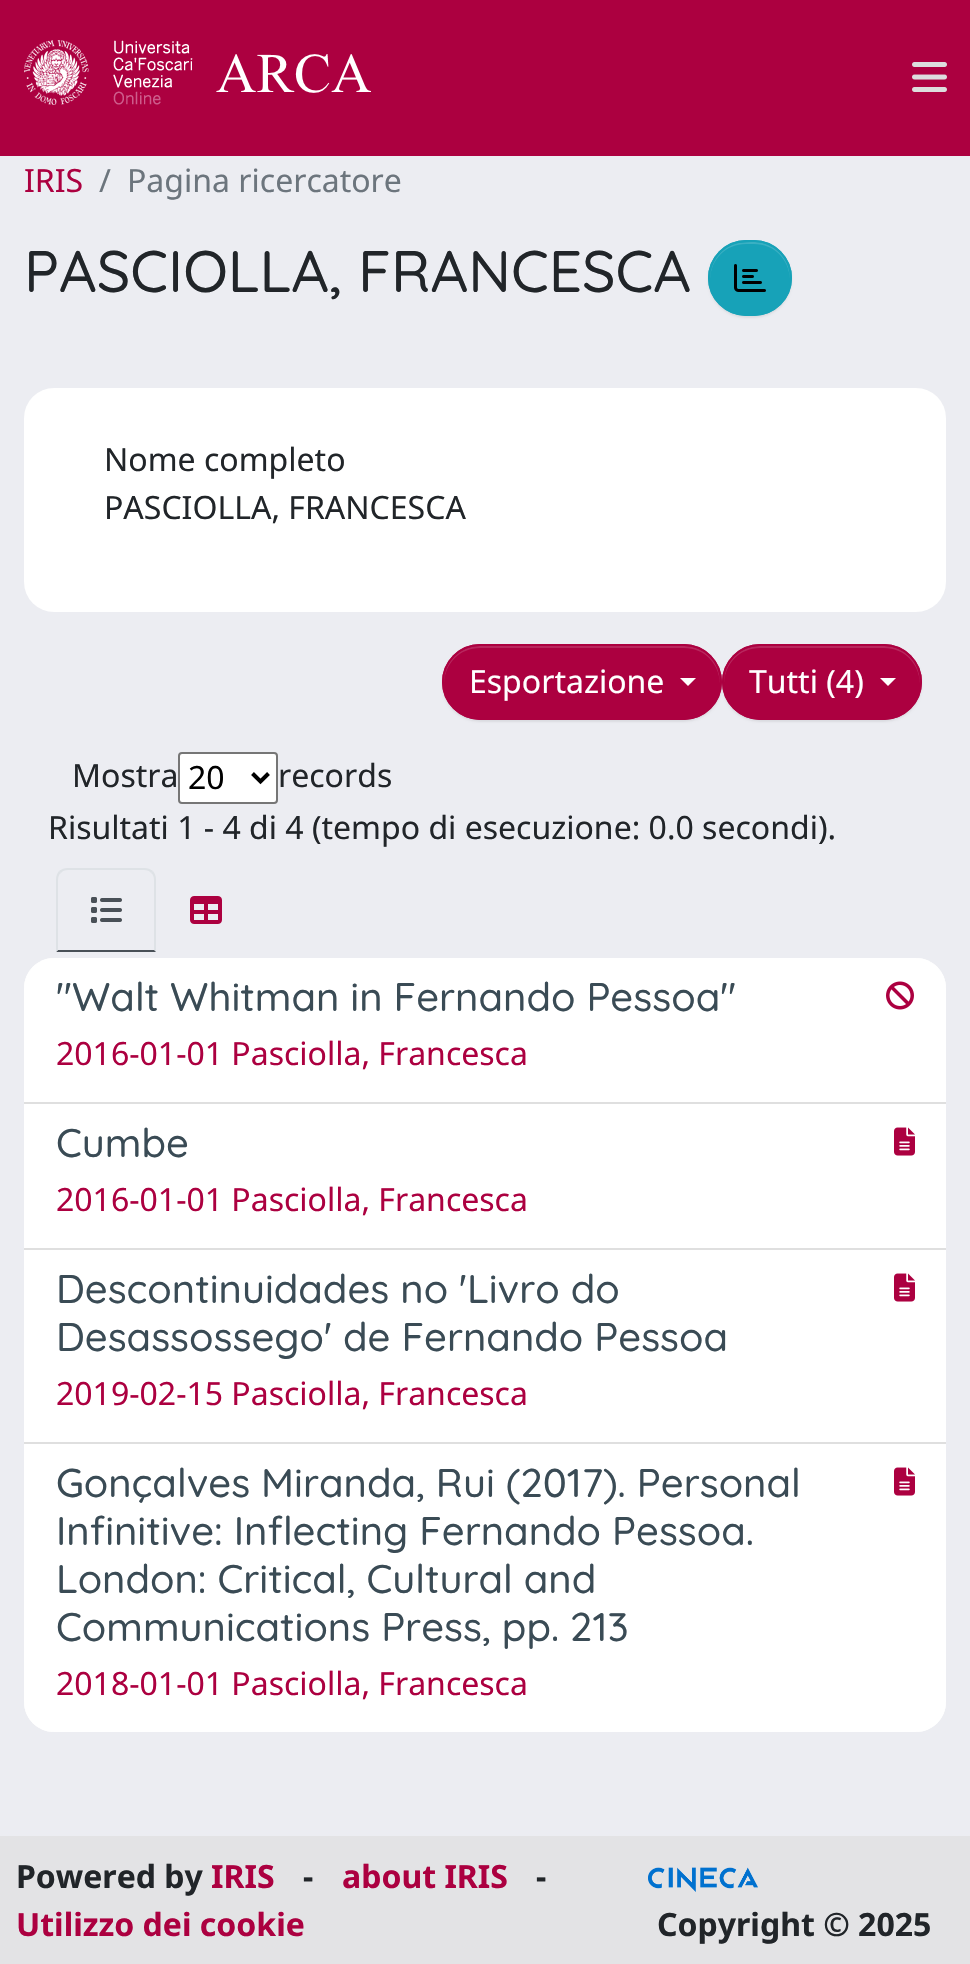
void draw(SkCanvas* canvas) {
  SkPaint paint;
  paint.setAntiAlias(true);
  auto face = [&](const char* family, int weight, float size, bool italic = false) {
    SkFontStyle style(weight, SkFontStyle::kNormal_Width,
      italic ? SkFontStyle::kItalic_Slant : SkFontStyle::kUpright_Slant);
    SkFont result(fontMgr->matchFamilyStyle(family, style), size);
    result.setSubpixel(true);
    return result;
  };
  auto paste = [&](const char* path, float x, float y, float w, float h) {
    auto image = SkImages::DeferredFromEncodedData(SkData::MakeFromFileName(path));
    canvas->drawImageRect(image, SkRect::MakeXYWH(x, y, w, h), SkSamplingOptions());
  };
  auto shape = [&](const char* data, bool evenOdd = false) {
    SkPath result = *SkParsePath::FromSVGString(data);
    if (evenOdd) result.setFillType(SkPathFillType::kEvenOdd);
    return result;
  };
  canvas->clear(0xffecedf2);
  paint.setColor(0xffac0040);
  canvas->drawRect(SkRect::MakeXYWH(0, 0, 970, 156), paint);
  paste("img/1.png", 24, 40, 347, 65);
  paste("img/2.png", 912, 62, 35, 30);
  paint.setColor(0x12000000);
  paint.setMaskFilter(SkMaskFilter::MakeBlur(kNormal_SkBlurStyle, 1));
  canvas->drawRoundRect(SkRect::MakeXYWH(708, 242, 84, 76), 38, 38, paint);
  paint.setMaskFilter(nullptr);
  paint.setColor(0xff17a2b8);
  canvas->drawRoundRect(SkRect::MakeXYWH(708, 240, 84, 76), 38, 38, paint);
  paint.setColor(0xff3ab0c3);
  canvas->drawPath(shape("M746 244H754C774 244 789 259 790 279C790 264 782 251 768 245C762 242 757 242 751 242L739 243C722 246 710 262 710 279C711 259 726 244 746 244Z"), paint);
  paint.setStroke(true);
  paint.setStrokeWidth(2);
  paint.setColor(0xff17a2b8);
  canvas->drawRoundRect(SkRect::MakeXYWH(709, 241, 82, 74), 37, 37, paint);
  paste("img/3.png", 734, 264, 32, 28);
  paint.setStroke(false);
  paint.setColor(0xffffffff);
  canvas->drawRoundRect(SkRect::MakeXYWH(24, 388, 922, 224), 30, 30, paint);
  paint.setColor(0x12000000);
  paint.setMaskFilter(SkMaskFilter::MakeBlur(kNormal_SkBlurStyle, 1));
  canvas->drawRoundRect(SkRect::MakeXYWH(722, 646, 200, 76), 38, 38, paint);
  paint.setMaskFilter(nullptr);
  paint.setColor(0xffac0040);
  canvas->drawRoundRect(SkRect::MakeXYWH(722, 644, 200, 76), 38, 38, paint);
  paint.setColor(0xffb8265d);
  canvas->drawPath(shape("M760 648H884C904 648 919 663 920 683V682C920 662 904 646 884 646H760C740 646 724 662 724 682V683C725 663 740 648 760 648Z"), paint);
  paint.setStroke(true);
  paint.setColor(0xffac0040);
  canvas->drawRoundRect(SkRect::MakeXYWH(723, 645, 198, 74), 37, 37, paint);
  paint.setStroke(false);
  paint.setColor(0x12000000);
  paint.setMaskFilter(SkMaskFilter::MakeBlur(kNormal_SkBlurStyle, 1));
  canvas->drawRoundRect(SkRect::MakeXYWH(442, 646, 280, 76), 38, 38, paint);
  paint.setMaskFilter(nullptr);
  paint.setColor(0xffac0040);
  canvas->drawRoundRect(SkRect::MakeXYWH(442, 644, 280, 76), 38, 38, paint);
  paint.setColor(0xffb8265d);
  canvas->drawPath(shape("M480 648H684C704 648 719 663 720 683V682C720 662 704 646 684 646H480C460 646 444 662 444 682V683C445 663 460 648 480 648Z"), paint);
  paint.setStroke(true);
  paint.setColor(0xffac0040);
  canvas->drawRoundRect(SkRect::MakeXYWH(443, 645, 278, 74), 37, 37, paint);
  paint.setStroke(false);
  paint.setColor(0xffffffff);
  canvas->drawPath(shape("M680 678H696L688 686Z"), paint);
  canvas->drawPath(shape("M880 678H896L888 686Z"), paint);
  canvas->drawRoundRect(SkRect::MakeXYWH(179, 753, 98, 50), 3, 3, paint);
  paint.setStroke(true);
  paint.setColor(0xff767676);
  canvas->drawRoundRect(SkRect::MakeXYWH(179, 753, 98, 50), 3, 3, paint);
  paint.setStrokeWidth(4);
  paint.setColor(0xff000000);
  canvas->drawPath(shape("M252.5 773.5L260.5 781.5L268.5 773.5"), paint);
  paint.setStroke(false);
  paint.setColor(0xffdee2e6);
  canvas->drawPath(shape("M68 868C64 868 62 869 59 871L61 873C62 871 65 870 68 870H144C147 870 150 871 151 873L153 871C150 869 148 868 144 868Z"), paint);
  canvas->drawPath(shape("M156 952V880C156 876 155 874 153 871L151 873C153 874 154 877 154 880V950Z"), paint);
  paint.setColor(0xff495057);
  canvas->drawPath(shape("M156 952L154 950H58L56 952Z"), paint);
  paint.setColor(0xffdee2e6);
  canvas->drawPath(shape("M56 952L58 950V880C58 877 59 874 61 873L59 871C57 874 56 876 56 880Z"), paint);
  paste("img/4.png", 91, 897, 31, 26);
  paste("img/5.png", 190, 896, 32, 28);
  paint.setColor(0xffffffff);
  canvas->drawRoundRect(SkRect::MakeXYWH(24, 958, 922, 774), 30, 30, paint);
  canvas->drawPath(shape("M54 958H916C932.5 958 946 971.5 946 988V1104H24V988C24 971.5 37.5 958 54 958Z"), paint);
  paint.setColor(0xffdfdfdf);
  canvas->drawRect(SkRect::MakeXYWH(24, 1102, 922, 2), paint);
  paste("img/6.png", 886, 981, 28, 29);
  canvas->drawRect(SkRect::MakeXYWH(24, 1248, 922, 2), paint);
  paste("img/7.png", 894, 1127, 21, 29);
  canvas->drawRect(SkRect::MakeXYWH(24, 1442, 922, 2), paint);
  paste("img/7.png", 894, 1273, 21, 29);
  paint.setColor(0xffffffff);
  canvas->drawPath(shape("M24 1444H946V1702C946 1718.5 932.5 1732 916 1732H54C37.5 1732 24 1718.5 24 1702Z"), paint);
  paste("img/7.png", 894, 1467, 21, 29);
  paint.setColor(0xffe3e3e5);
  canvas->drawRect(SkRect::MakeXYWH(0, 1836, 970, 128), paint);
  paste("img/8.png", 648, 1867, 110, 25);
  auto f0 = face("Noto Sans", 400, 32);
  paint.setColor(0xffac0040);
  canvas->drawString("IRIS", 24, 192, f0, paint);
  paint.setColor(0xff6c757d);
  canvas->drawString("/", 99, 192, f0, paint);
  canvas->drawString("Pagina ricercatore", 127, 192, f0, paint);
  auto f1 = face("Quicksand", 500, 58.5f);
  paint.setColor(0xff212529);
  canvas->drawString("PASCIOLLA, FRANCESCA", 24, 292, f1, paint);
  canvas->drawString("Nome completo", 104, 471, f0, paint);
  canvas->drawString("PASCIOLLA, FRANCESCA", 104, 519, f0, paint);
  paint.setColor(0xffffffff);
  canvas->drawString("Esportazione", 469, 693, f0, paint);
  canvas->drawString("Tutti (4)", 749, 693, f0, paint);
  paint.setColor(0xff212529);
  canvas->drawString("Mostra", 72, 787, f0, paint);
  paint.setColor(0xff000000);
  canvas->drawString("20", 188, 789, f0, paint);
  paint.setColor(0xff212529);
  canvas->drawString("records", 278, 787, f0, paint);
  canvas->drawString("Risultati 1 - 4 di 4 (tempo di esecuzione: 0.0 secondi).", 48, 839, f0, paint);
  auto f2 = face("Quicksand", 500, 40);
  paint.setColor(0xff3a4b55);
  canvas->drawString("\"Walt Whitman in Fernando Pessoa\"", 56, 1011, f2, paint);
  paint.setColor(0xffac0040);
  canvas->drawString("2016-01-01 Pasciolla, Francesca", 56, 1065, f0, paint);
  paint.setColor(0xff3a4b55);
  canvas->drawString("Cumbe", 56, 1157, f2, paint);
  paint.setColor(0xffac0040);
  canvas->drawString("2016-01-01 Pasciolla, Francesca", 56, 1211, f0, paint);
  paint.setColor(0xff3a4b55);
  canvas->drawString("Descontinuidades no 'Livro do", 56, 1303, f2, paint);
  canvas->drawString("Desassossego' de Fernando Pessoa", 56, 1351, f2, paint);
  paint.setColor(0xffac0040);
  canvas->drawString("2019-02-15 Pasciolla, Francesca", 56, 1405, f0, paint);
  paint.setColor(0xff3a4b55);
  {
    const struct { const char* s; float x, y; } items[] = {
      {"Gonçalves Miranda, Rui (2017). Personal", 56, 1497},
      {"Infinitive: Inflecting Fernando Pessoa.", 56, 1545},
      {"London: Critical, Cultural and", 56, 1593},
      {"Communications Press, pp. 213", 56, 1641},
    };
    for (auto [s, x, y] : items) {
      canvas->drawString(s, x, y, f2, paint);
    }
  }
  paint.setColor(0xffac0040);
  canvas->drawString("2018-01-01 Pasciolla, Francesca", 56, 1695, f0, paint);
  auto f3 = face("Noto Sans", 700, 32);
  paint.setColor(0xff212529);
  canvas->drawString("Powered by", 16, 1888, f3, paint);
  paint.setColor(0xffac0040);
  canvas->drawString("IRIS", 211, 1888, f3, paint);
  paint.setColor(0xff212529);
  canvas->drawString("-", 303, 1888, f3, paint);
  paint.setColor(0xffac0040);
  canvas->drawString("about IRIS", 342, 1888, f3, paint);
  paint.setColor(0xff212529);
  canvas->drawString("-", 536, 1888, f3, paint);
  paint.setColor(0xffac0040);
  canvas->drawString("Utilizzo dei cookie", 16, 1936, f3, paint);
  paint.setColor(0xff212529);
  canvas->drawString("Copyright © 2025", 657, 1936, f3, paint);
}
